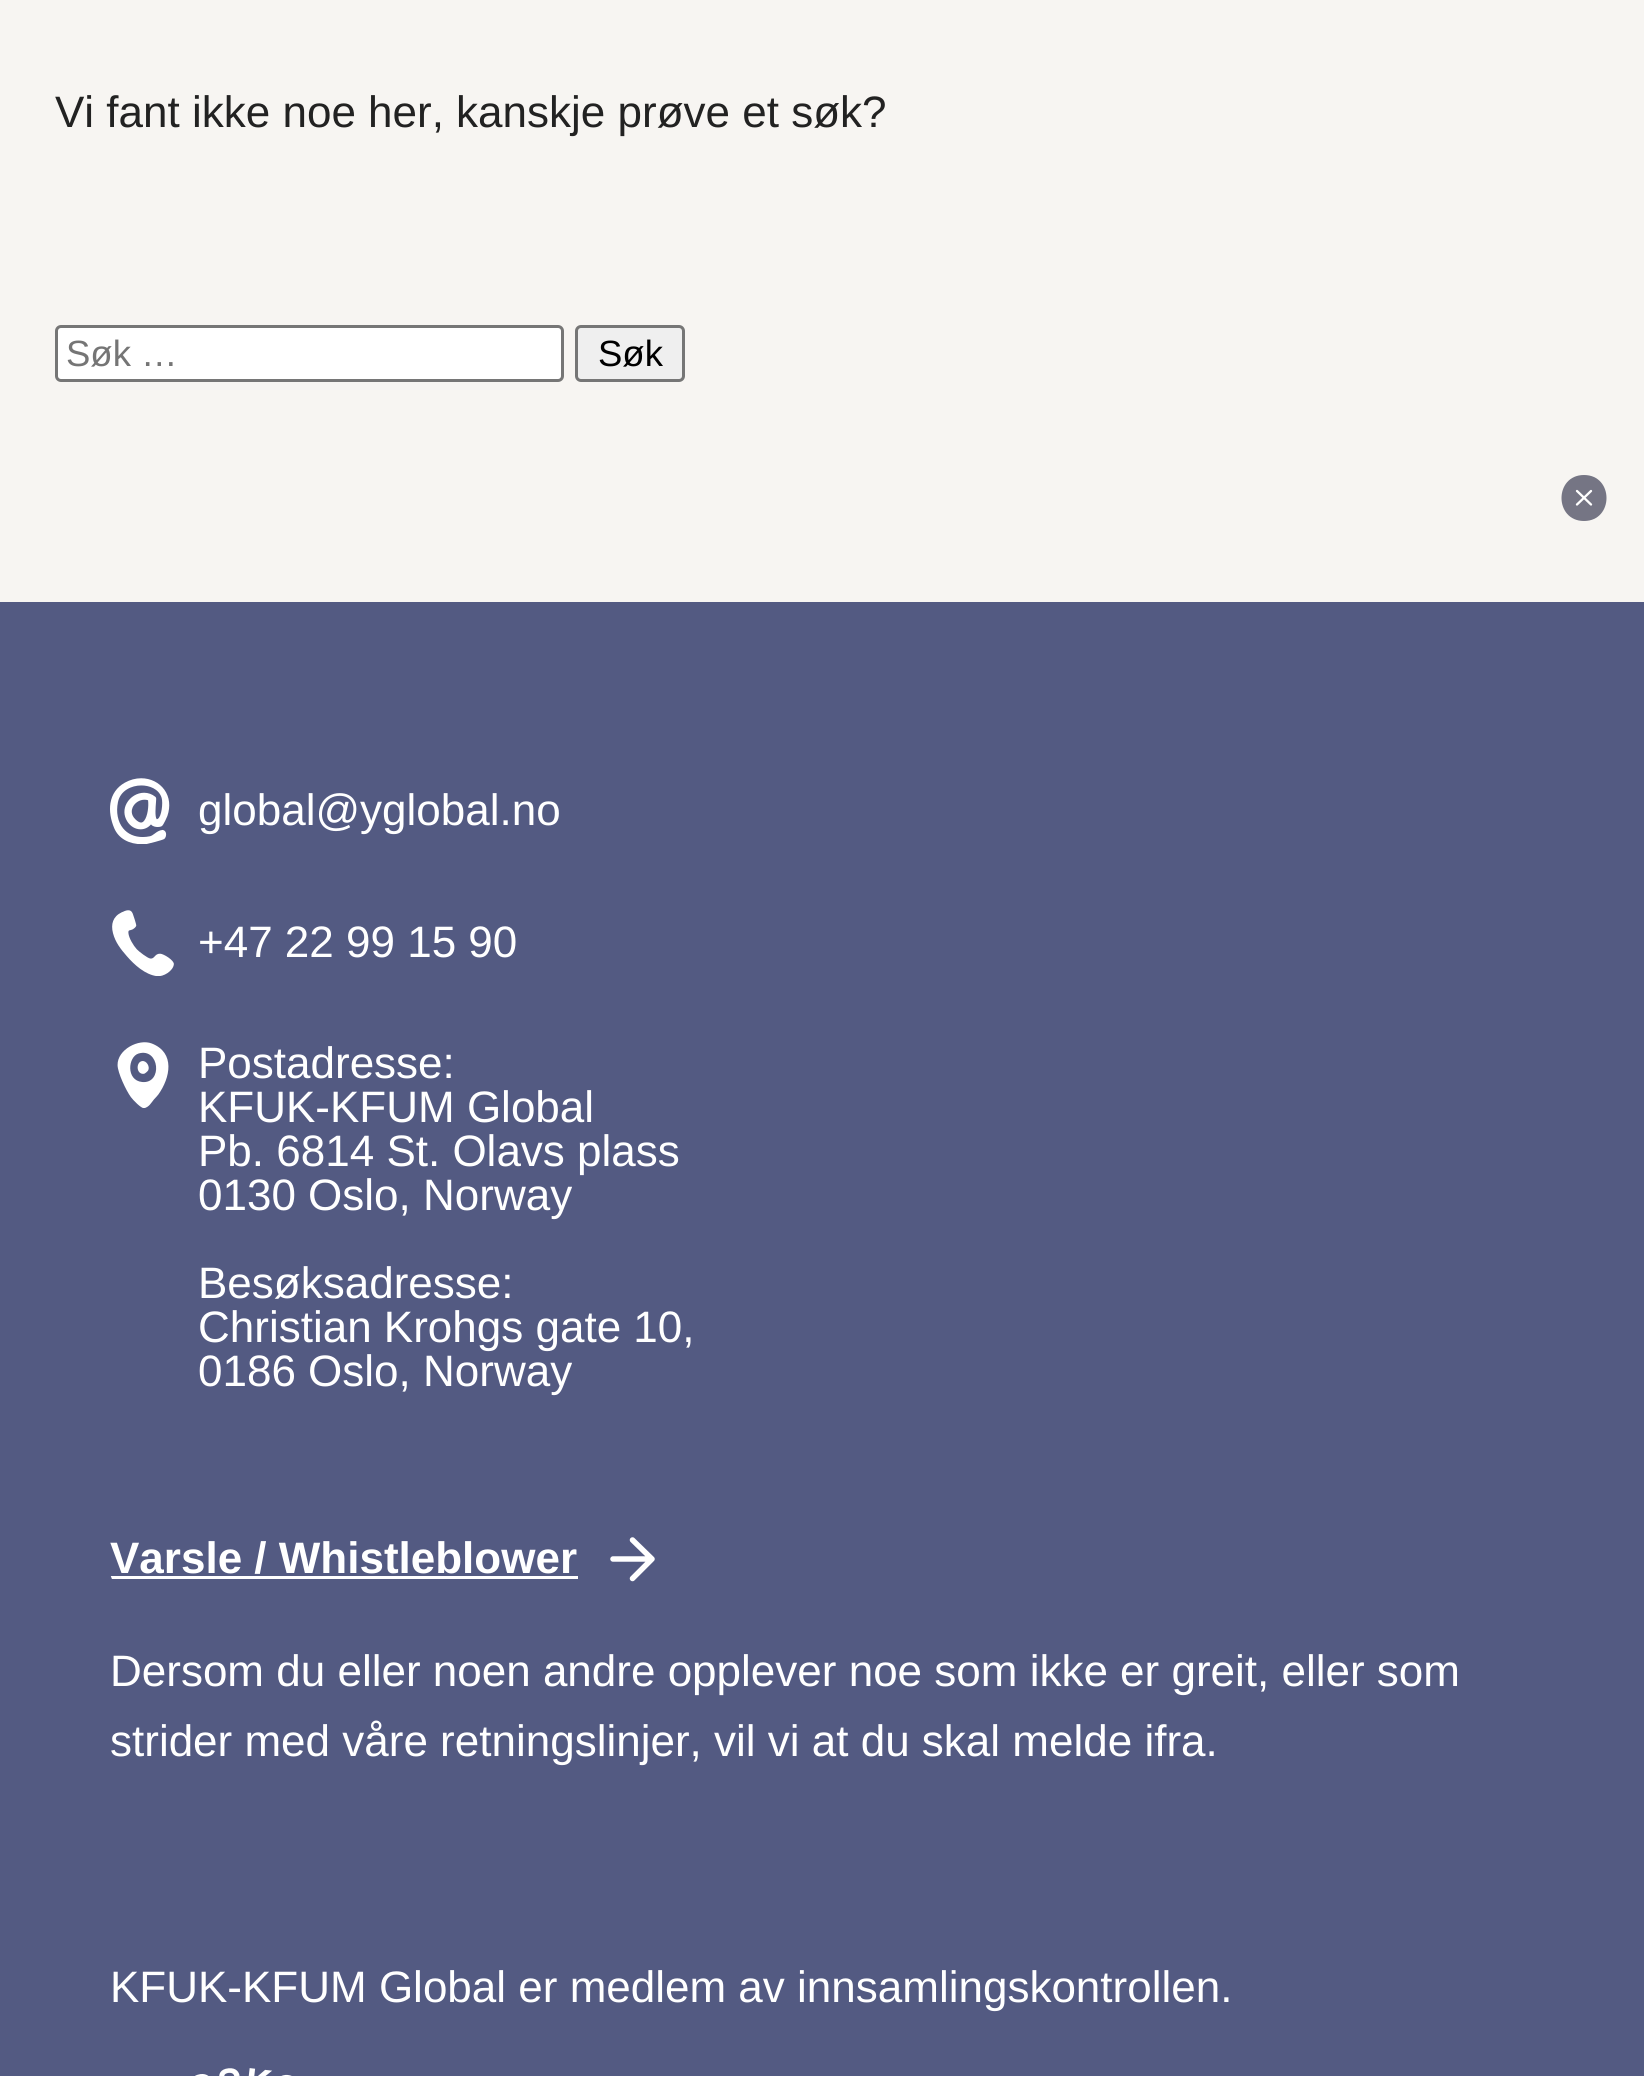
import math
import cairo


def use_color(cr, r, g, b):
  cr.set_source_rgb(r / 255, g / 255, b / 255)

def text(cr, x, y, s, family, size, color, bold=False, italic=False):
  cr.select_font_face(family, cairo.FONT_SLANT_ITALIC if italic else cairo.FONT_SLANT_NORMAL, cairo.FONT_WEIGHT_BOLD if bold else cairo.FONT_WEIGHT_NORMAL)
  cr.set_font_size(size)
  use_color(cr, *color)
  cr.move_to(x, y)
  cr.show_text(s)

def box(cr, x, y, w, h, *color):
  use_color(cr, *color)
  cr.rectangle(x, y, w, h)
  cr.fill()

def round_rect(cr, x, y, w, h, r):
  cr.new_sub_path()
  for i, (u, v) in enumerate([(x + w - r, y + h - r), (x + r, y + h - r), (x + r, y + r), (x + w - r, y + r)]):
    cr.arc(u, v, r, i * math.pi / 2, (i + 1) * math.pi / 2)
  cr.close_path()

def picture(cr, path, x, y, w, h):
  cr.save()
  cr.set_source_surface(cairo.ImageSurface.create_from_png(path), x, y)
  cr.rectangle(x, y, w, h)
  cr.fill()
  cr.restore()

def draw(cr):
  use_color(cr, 247, 245, 242)
  cr.paint()
  use_color(cr, 255, 255, 255)
  round_rect(cr, 56.5, 326.5, 506, 54, 4.5)
  cr.fill_preserve()
  use_color(cr, 118, 118, 118)
  cr.set_line_width(3)
  cr.stroke()
  use_color(cr, 239, 239, 239)
  round_rect(cr, 576.5, 326.5, 107, 54, 4.5)
  cr.fill_preserve()
  use_color(cr, 118, 118, 118)
  cr.stroke()
  use_color(cr, 117, 117, 132)
  cr.new_path()
  cr.move_to(1584, 521)
  cr.curve_to(1614, 521, 1614, 475, 1584, 475)
  cr.curve_to(1554, 475, 1554, 521, 1584, 521)
  cr.close_path()
  cr.fill()
  cr.new_path()
  cr.move_to(1591, 491)
  cr.line_to(1577, 504.5)
  cr.move_to(1577, 491)
  cr.line_to(1591, 504.5)
  use_color(cr, 255, 255, 255)
  cr.set_line_width(2.3)
  cr.set_line_cap(cairo.LINE_CAP_ROUND)
  cr.set_line_join(cairo.LINE_JOIN_ROUND)
  cr.stroke()
  box(cr, 0, 602, 1644, 1474, 83, 90, 130)
  picture(cr, "img_01.png", 110, 778, 60, 66)
  picture(cr, "img_02.png", 112, 910, 62, 66)
  picture(cr, "img_03.png", 117, 1042, 52, 66)
  cr.save()
  round_rect(cr, 110, 1526, 556, 66, 22)
  cr.clip()
  box(cr, 110, 1576, 468, 3, 255, 255, 255)
  cr.restore()
  cr.new_path()
  cr.move_to(613, 1559)
  cr.line_to(652, 1559)
  cr.move_to(632.5, 1540)
  cr.line_to(652, 1559)
  cr.line_to(632.5, 1578.5)
  use_color(cr, 255, 255, 255)
  cr.set_line_width(5.5)
  cr.stroke()
  picture(cr, "img_04.png", 195, 2068, 97, 8)
  text(cr, 55, 127, "Vi fant ikke noe her, kanskje prøve et søk?", "Liberation Sans", 44, (34, 34, 34))
  text(cr, 66, 366, "Søk …", "Liberation Sans", 36.5, (117, 117, 117))
  text(cr, 598, 366, "Søk", "Liberation Sans", 36.5, (0, 0, 0))
  text(cr, 198, 825, "global@yglobal.no", "Liberation Sans", 44, (255, 255, 255))
  text(cr, 198, 957, "+47 22 99 15 90", "Liberation Sans", 44, (255, 255, 255))
  text(cr, 198, 1078, "Postadresse:", "Liberation Sans", 44, (255, 255, 255))
  text(cr, 198, 1122, "KFUK-KFUM Global", "Liberation Sans", 44, (255, 255, 255))
  text(cr, 198, 1166, "Pb. 6814 St. Olavs plass", "Liberation Sans", 44, (255, 255, 255))
  text(cr, 198, 1210, "0130 Oslo, Norway", "Liberation Sans", 44, (255, 255, 255))
  text(cr, 198, 1298, "Besøksadresse:", "Liberation Sans", 44, (255, 255, 255))
  text(cr, 198, 1342, "Christian Krohgs gate 10,", "Liberation Sans", 44, (255, 255, 255))
  text(cr, 198, 1386, "0186 Oslo, Norway", "Liberation Sans", 44, (255, 255, 255))
  text(cr, 110, 1573, "Varsle / Whistleblower", "Liberation Sans", 44, (255, 255, 255), bold=True)
  text(cr, 110, 1686, "Dersom du eller noen andre opplever noe som ikke er greit, eller som", "Liberation Sans", 44, (255, 255, 255))
  text(cr, 110, 1756, "strider med våre retningslinjer, vil vi at du skal melde ifra.", "Liberation Sans", 44, (255, 255, 255))
  text(cr, 110, 2002, "KFUK-KFUM Global er medlem av innsamlingskontrollen.", "Liberation Sans", 44, (255, 255, 255))


surface = cairo.ImageSurface(cairo.FORMAT_RGB24, 1644, 2076)
cr = cairo.Context(surface)
options = cairo.FontOptions()
options.set_hint_metrics(cairo.HINT_METRICS_OFF)
options.set_hint_style(cairo.HINT_STYLE_NONE)
cr.set_font_options(options)
cr.set_miter_limit(4)
draw(cr)
surface.write_to_png("out.png")
